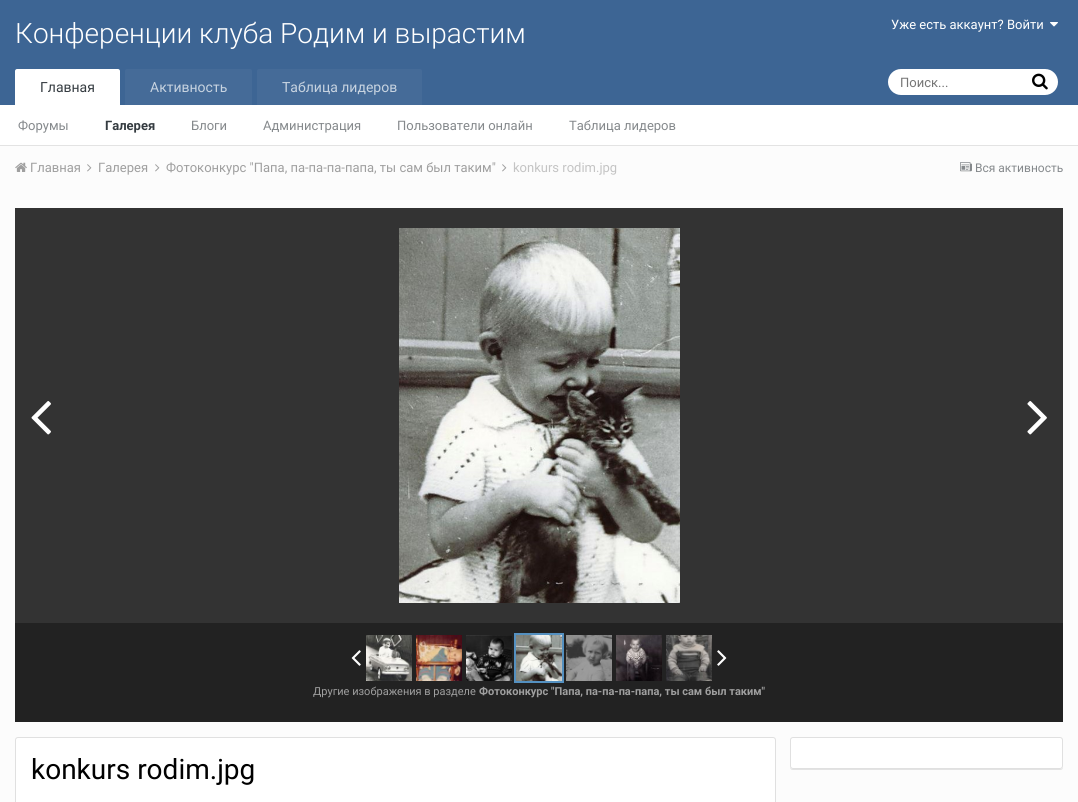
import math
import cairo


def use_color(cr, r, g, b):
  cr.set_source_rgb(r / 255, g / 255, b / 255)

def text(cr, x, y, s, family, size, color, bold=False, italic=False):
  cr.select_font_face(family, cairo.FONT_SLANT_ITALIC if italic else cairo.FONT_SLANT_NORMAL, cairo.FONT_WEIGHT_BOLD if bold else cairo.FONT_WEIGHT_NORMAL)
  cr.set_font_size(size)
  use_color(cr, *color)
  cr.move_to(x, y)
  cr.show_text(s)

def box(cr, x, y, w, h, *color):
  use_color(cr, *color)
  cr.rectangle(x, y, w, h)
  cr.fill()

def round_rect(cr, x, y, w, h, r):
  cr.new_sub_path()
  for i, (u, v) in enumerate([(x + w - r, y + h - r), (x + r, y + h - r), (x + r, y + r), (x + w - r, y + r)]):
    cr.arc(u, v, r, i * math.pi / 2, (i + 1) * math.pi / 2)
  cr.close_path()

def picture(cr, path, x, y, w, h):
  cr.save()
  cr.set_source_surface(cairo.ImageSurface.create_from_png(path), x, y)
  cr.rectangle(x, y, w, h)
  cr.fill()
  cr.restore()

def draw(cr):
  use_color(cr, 252, 252, 252)
  cr.paint()
  box(cr, 0, 145, 1078, 1, 227, 227, 227)
  box(cr, 0, 0, 1078, 105, 61, 101, 148)
  picture(cr, "img_01.png", 1050, 22, 8, 5)
  box(cr, 0, 105, 1078, 40, 255, 255, 255)
  use_color(cr, 69, 107, 152)
  cr.new_path()
  cr.move_to(259, 69)
  cr.line_to(420, 69)
  cr.curve_to(421, 69, 422, 70, 422, 71)
  cr.line_to(422, 105)
  cr.line_to(257, 105)
  cr.line_to(257, 71)
  cr.curve_to(257, 70, 258, 69, 259, 69)
  cr.close_path()
  cr.fill()
  use_color(cr, 255, 255, 255)
  cr.new_path()
  cr.move_to(17, 69)
  cr.line_to(118, 69)
  cr.curve_to(119, 69, 120, 70, 120, 71)
  cr.line_to(120, 105)
  cr.line_to(15, 105)
  cr.line_to(15, 71)
  cr.curve_to(15, 70, 16, 69, 17, 69)
  cr.close_path()
  cr.fill()
  use_color(cr, 69, 107, 152)
  cr.new_path()
  cr.move_to(127, 69)
  cr.line_to(250, 69)
  cr.curve_to(251, 69, 252, 70, 252, 71)
  cr.line_to(252, 105)
  cr.line_to(125, 105)
  cr.line_to(125, 71)
  cr.curve_to(125, 70, 126, 69, 127, 69)
  cr.close_path()
  cr.fill()
  use_color(cr, 255, 255, 255)
  round_rect(cr, 888, 69, 170, 26, 13)
  cr.fill()
  picture(cr, "img_02.png", 1032, 73, 16, 17)
  picture(cr, "img_03.png", 15, 162, 12, 10)
  picture(cr, "img_04.png", 87, 164, 5, 8)
  picture(cr, "img_04.png", 155, 164, 5, 8)
  picture(cr, "img_04.png", 502, 164, 5, 8)
  picture(cr, "img_05.png", 960, 162, 12, 10)
  box(cr, 15, 208, 1048, 415, 51, 51, 51)
  picture(cr, "img_06.png", 399, 228, 281, 375)
  picture(cr, "img_07.png", 31, 401, 20, 34)
  picture(cr, "img_08.png", 1027, 401, 20, 34)
  box(cr, 15, 623, 1048, 99, 34, 34, 34)
  picture(cr, "img_09.png", 351, 650, 10, 16)
  picture(cr, "img_10.png", 366, 635, 46, 46)
  picture(cr, "img_11.png", 416, 635, 46, 46)
  picture(cr, "img_12.png", 466, 635, 46, 46)
  picture(cr, "img_13.png", 516, 635, 46, 46)
  cr.rectangle(515, 634, 48, 48)
  use_color(cr, 84, 144, 192)
  cr.stroke()
  picture(cr, "img_14.png", 566, 635, 46, 46)
  picture(cr, "img_15.png", 616, 635, 46, 46)
  picture(cr, "img_16.png", 666, 635, 46, 46)
  picture(cr, "img_17.png", 717, 650, 10, 16)
  use_color(cr, 255, 255, 255)
  round_rect(cr, 15.5, 737.5, 760, 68, 2.5)
  cr.fill_preserve()
  use_color(cr, 224, 224, 224)
  cr.set_line_width(1)
  cr.stroke()
  use_color(cr, 227, 227, 227)
  cr.new_path()
  cr.move_to(790, 766)
  cr.line_to(790, 767)
  cr.curve_to(790, 769, 791, 770, 793, 770)
  cr.line_to(1060, 770)
  cr.curve_to(1062, 770, 1063, 769, 1063, 767)
  cr.line_to(1063, 766)
  cr.curve_to(1063, 768, 1062, 769, 1060, 769)
  cr.line_to(793, 769)
  cr.curve_to(791, 769, 790, 768, 790, 766)
  cr.close_path()
  cr.fill()
  use_color(cr, 255, 255, 255)
  round_rect(cr, 790.5, 737.5, 272, 31, 2.5)
  cr.fill_preserve()
  use_color(cr, 224, 224, 224)
  cr.stroke()
  text(cr, 15, 43, "Конференции клуба Родим и вырастим", "Roboto Light", 28, (255, 255, 255))
  text(cr, 891, 29, "Уже есть аккаунт? Войти", "Roboto", 13, (255, 255, 255))
  text(cr, 282, 92, "Таблица лидеров", "Roboto", 14, (199, 211, 224))
  text(cr, 40, 92, "Главная", "Roboto", 14, (53, 60, 65))
  text(cr, 18, 130, "Форумы", "Roboto", 13, (133, 137, 140))
  text(cr, 105, 130, "Галерея", "Roboto", 13, (53, 60, 65), bold=True)
  text(cr, 191, 130, "Блоги", "Roboto", 13, (133, 137, 140))
  text(cr, 263, 130, "Администрация", "Roboto", 13, (133, 137, 140))
  text(cr, 397, 130, "Пользователи онлайн", "Roboto", 13, (133, 137, 140))
  text(cr, 569, 130, "Таблица лидеров", "Roboto", 13, (133, 137, 140))
  text(cr, 150, 92, "Активность", "Roboto", 14, (199, 211, 224))
  text(cr, 900, 87, "Поиск...", "Roboto", 13, (117, 117, 117))
  text(cr, 30, 172, "Главная", "Roboto", 13, (159, 159, 159))
  text(cr, 98, 172, "Галерея", "Roboto", 13, (159, 159, 159))
  text(cr, 166, 172, "Фотоконкурс \"Папа, па-па-па-папа, ты сам был таким\"", "Roboto", 13, (159, 159, 159))
  text(cr, 513, 172, "konkurs rodim.jpg", "Roboto", 13, (196, 196, 196))
  text(cr, 975, 172, "Вся активность", "Roboto", 12, (133, 137, 140))
  text(cr, 313, 695, "Другие изображения в разделе", "Roboto", 11, (159, 159, 159))
  text(cr, 479, 695, "Фотоконкурс \"Папа, па-па-па-папа, ты сам был таким\"", "Roboto", 11, (159, 159, 159), bold=True)
  text(cr, 31, 779, "konkurs rodim.jpg", "Roboto", 28, (0, 0, 0))


surface = cairo.ImageSurface(cairo.FORMAT_RGB24, 1078, 802)
cr = cairo.Context(surface)
options = cairo.FontOptions()
options.set_hint_metrics(cairo.HINT_METRICS_OFF)
options.set_hint_style(cairo.HINT_STYLE_NONE)
cr.set_font_options(options)
cr.set_miter_limit(4)
draw(cr)
surface.write_to_png("out.png")
